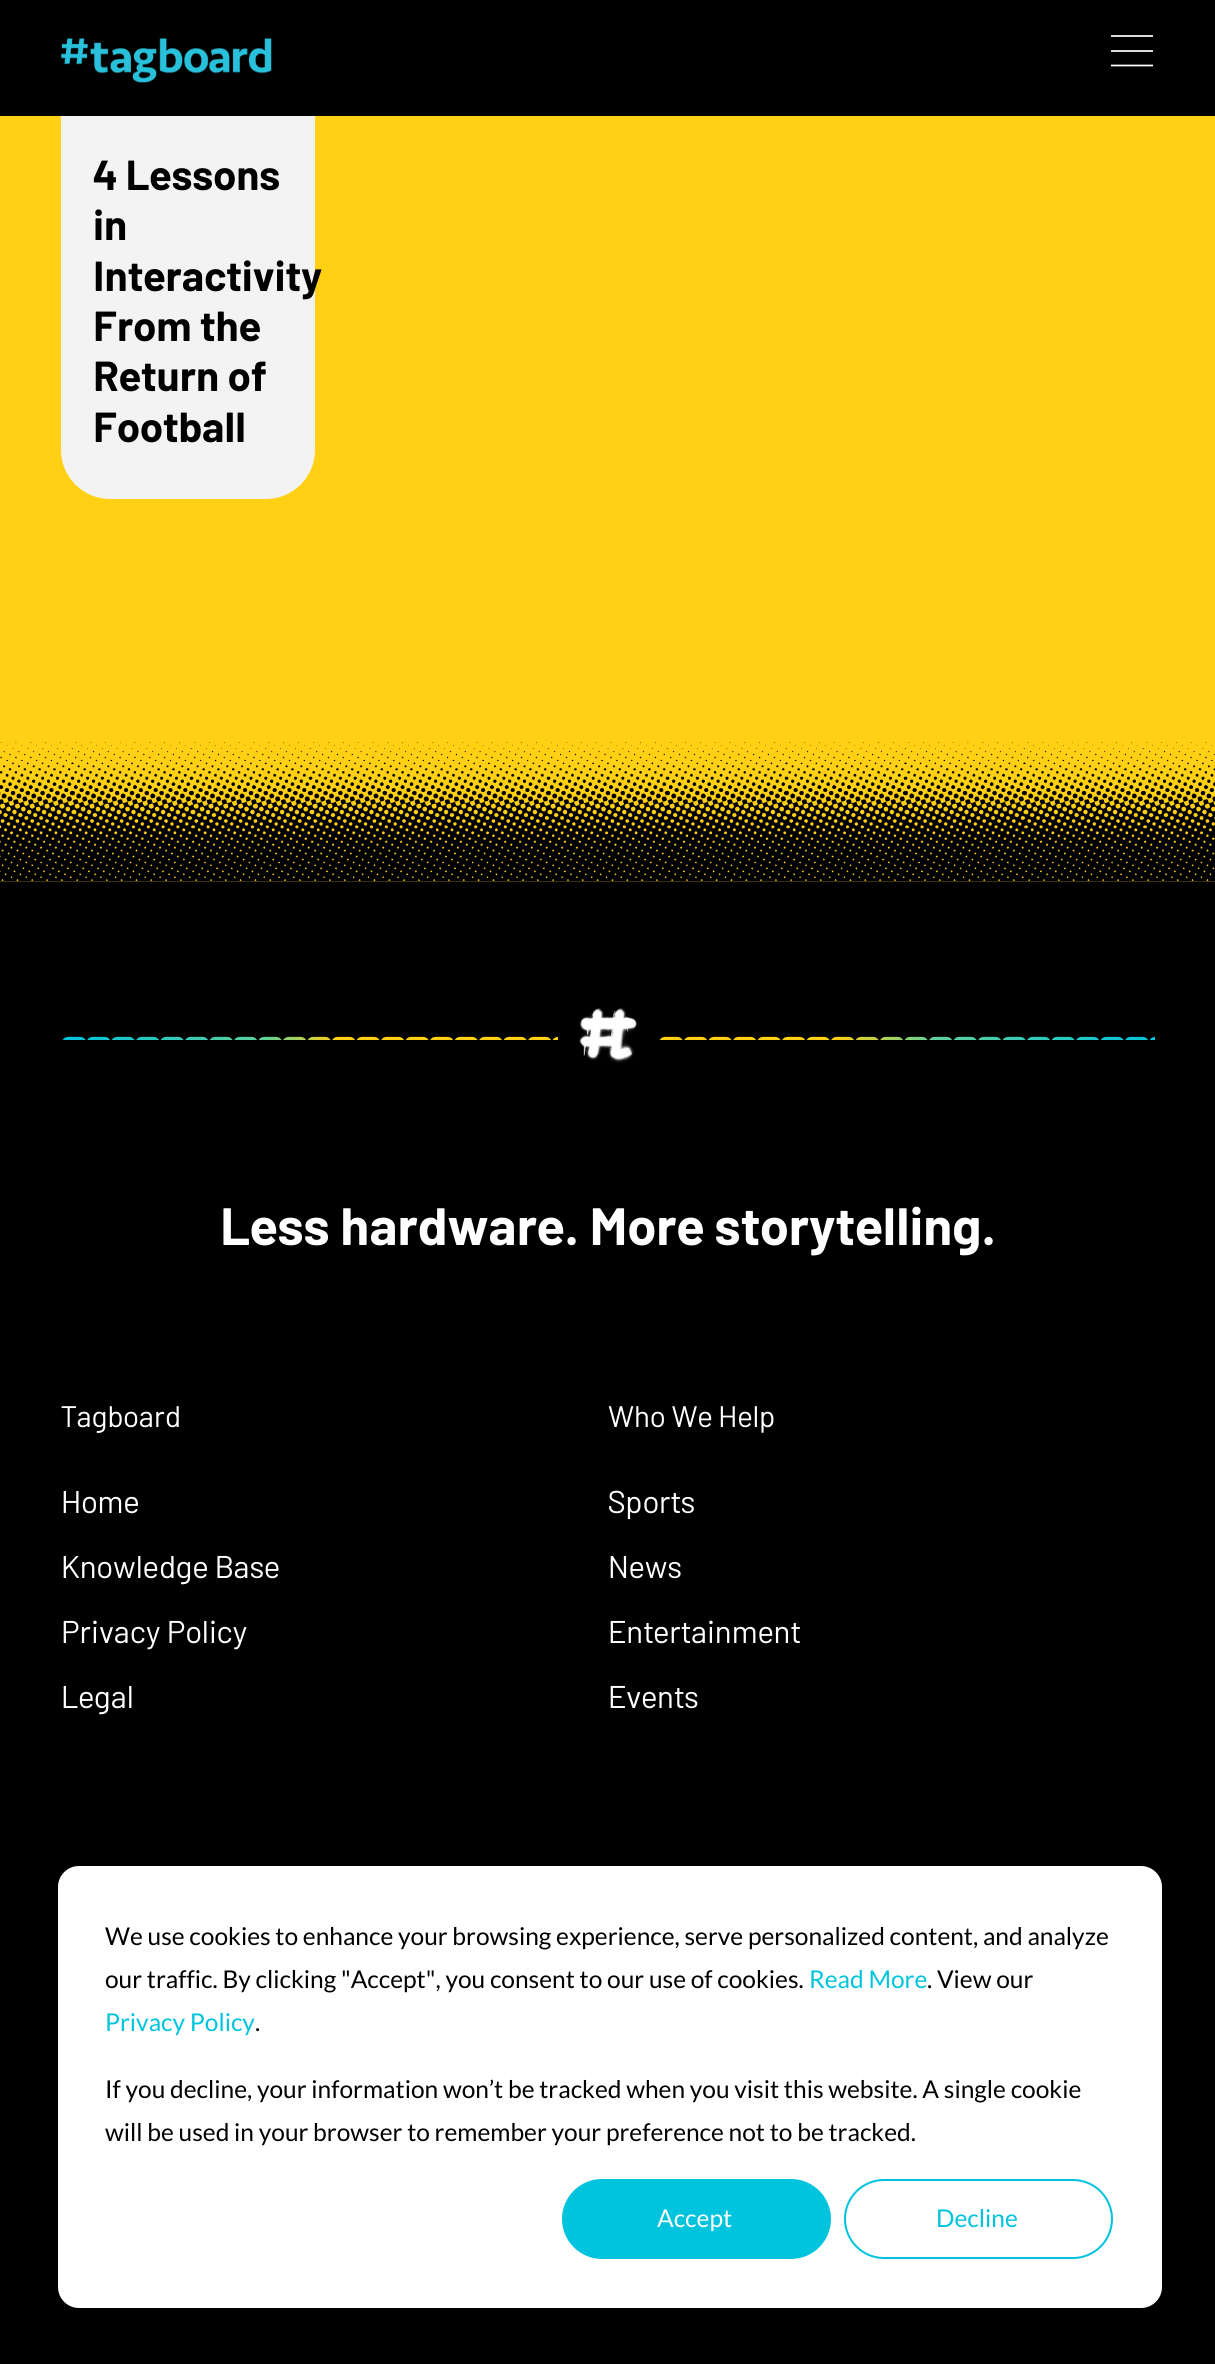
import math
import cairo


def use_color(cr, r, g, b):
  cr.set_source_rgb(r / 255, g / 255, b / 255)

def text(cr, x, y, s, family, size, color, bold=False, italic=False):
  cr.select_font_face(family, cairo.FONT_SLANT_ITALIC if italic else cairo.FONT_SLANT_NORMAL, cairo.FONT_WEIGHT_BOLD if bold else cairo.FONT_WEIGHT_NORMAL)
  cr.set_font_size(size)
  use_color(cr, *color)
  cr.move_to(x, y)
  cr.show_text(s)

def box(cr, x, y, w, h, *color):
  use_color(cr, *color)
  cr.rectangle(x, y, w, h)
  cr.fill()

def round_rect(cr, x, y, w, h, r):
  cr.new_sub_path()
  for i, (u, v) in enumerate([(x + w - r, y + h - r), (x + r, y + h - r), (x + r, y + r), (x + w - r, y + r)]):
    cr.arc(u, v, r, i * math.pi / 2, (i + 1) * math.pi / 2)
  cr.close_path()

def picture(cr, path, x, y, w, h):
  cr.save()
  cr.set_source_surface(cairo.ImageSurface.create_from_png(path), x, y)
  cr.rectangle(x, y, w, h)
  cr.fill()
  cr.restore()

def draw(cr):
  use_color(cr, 0, 0, 0)
  cr.paint()
  box(cr, 0, 116, 1215, 766, 255, 208, 19)
  use_color(cr, 243, 243, 244)
  cr.new_path()
  cr.move_to(61, 4)
  cr.line_to(266, 4)
  cr.curve_to(293, 4, 315, 26, 315, 53)
  cr.line_to(315, 450)
  cr.curve_to(315, 477, 293, 499, 266, 499)
  cr.line_to(110, 499)
  cr.curve_to(83, 499, 61, 477, 61, 450)
  cr.close_path()
  cr.fill()
  box(cr, 61, 4, 254, 112, 0, 0, 0)
  picture(cr, "img_01.png", 61, 38, 211, 45)
  cr.save()
  cr.rectangle(1111, 35, 42, 32)
  cr.clip()
  cr.new_path()
  cr.move_to(1111, 36)
  cr.line_to(1154.5, 36)
  cr.move_to(1111, 51)
  cr.line_to(1154.5, 51)
  cr.move_to(1111, 65.5)
  cr.line_to(1154.5, 65.5)
  use_color(cr, 255, 255, 255)
  cr.set_line_width(1.7)
  cr.stroke()
  cr.restore()
  picture(cr, "img_02.png", 0, 742, 1215, 140)
  cr.save()
  cr.rectangle(61, 1036, 497, 4)
  cr.clip()
  cr.new_path()
  cr.move_to(68, 1043)
  cr.line_to(558, 1043)
  gradient = cairo.LinearGradient(68, 1043, 558, 1043)
  gradient.add_color_stop_rgba(0, 0, 0.769, 0.867, 1)
  gradient.add_color_stop_rgba(0.4, 0.376, 0.816, 0.608, 1)
  gradient.add_color_stop_rgba(0.55, 1, 0.816, 0.075, 1)
  gradient.add_color_stop_rgba(1, 1, 0.816, 0.075, 1)
  cr.set_source(gradient)
  cr.set_line_width(12.2)
  cr.set_line_cap(cairo.LINE_CAP_ROUND)
  cr.set_dash([12.25, 12.25])
  cr.stroke()
  cr.restore()
  picture(cr, "img_03.png", 579, 1007, 60, 56)
  cr.save()
  cr.rectangle(658, 1036, 497, 4)
  cr.clip()
  cr.new_path()
  cr.move_to(665, 1043)
  cr.line_to(1155, 1043)
  gradient = cairo.LinearGradient(665, 1043, 1155, 1043)
  gradient.add_color_stop_rgba(0, 1, 0.816, 0.075, 1)
  gradient.add_color_stop_rgba(0.35, 1, 0.816, 0.075, 1)
  gradient.add_color_stop_rgba(0.55, 0.376, 0.816, 0.608, 1)
  gradient.add_color_stop_rgba(1, 0, 0.769, 0.867, 1)
  cr.set_source(gradient)
  cr.set_line_width(12.2)
  cr.set_line_cap(cairo.LINE_CAP_ROUND)
  cr.set_dash([12.25, 12.25])
  cr.stroke()
  cr.restore()
  use_color(cr, 255, 255, 255)
  round_rect(cr, 58, 1866, 1104, 442, 21)
  cr.fill()
  use_color(cr, 0, 196, 221)
  round_rect(cr, 563, 2180, 267, 78, 39)
  cr.fill_preserve()
  cr.stroke()
  round_rect(cr, 845, 2180, 267, 78, 39)
  cr.stroke()
  text(cr, 93, 190, "4 Lessons", "Barlow", 42, (0, 0, 0), bold=True)
  text(cr, 93, 240, "in", "Barlow", 42, (0, 0, 0), bold=True)
  text(cr, 93, 291, "Interactivity", "Barlow", 42, (0, 0, 0), bold=True)
  text(cr, 93, 341, "From the", "Barlow", 42, (0, 0, 0), bold=True)
  text(cr, 93, 391, "Return of", "Barlow", 42, (0, 0, 0), bold=True)
  text(cr, 93, 442, "Football", "Barlow", 42, (0, 0, 0), bold=True)
  text(cr, 220, 1245, "Less hardware. More storytelling.", "Barlow", 52.5, (255, 255, 255), bold=True)
  text(cr, 61, 1427, "Tagboard", "Barlow", 29.75, (255, 255, 255))
  text(cr, 61, 1513, "Home", "Barlow", 31.5, (255, 255, 255))
  text(cr, 61, 1578, "Knowledge Base", "Barlow", 31.5, (255, 255, 255))
  text(cr, 61, 1643, "Privacy Policy", "Barlow", 31.5, (255, 255, 255))
  text(cr, 61, 1708, "Legal", "Barlow", 31.5, (255, 255, 255))
  text(cr, 608, 1427, "Who We Help", "Barlow", 29.75, (255, 255, 255))
  text(cr, 608, 1513, "Sports", "Barlow", 31.5, (255, 255, 255))
  text(cr, 608, 1578, "News", "Barlow", 31.5, (255, 255, 255))
  text(cr, 608, 1643, "Entertainment", "Barlow", 31.5, (255, 255, 255))
  text(cr, 608, 1708, "Events", "Barlow", 31.5, (255, 255, 255))
  text(cr, 105, 1945, "We use cookies to enhance your browsing experience, serve personalized content, and analyze", "Lato", 24.5, (0, 0, 0))
  text(cr, 105, 1988, "our traffic. By clicking \"Accept\", you consent to our use of cookies.", "Lato", 24.5, (0, 0, 0))
  text(cr, 809, 1988, "Read More", "Lato", 24.5, (0, 196, 221))
  text(cr, 927, 1988, ". View our", "Lato", 24.5, (0, 0, 0))
  text(cr, 105, 2031, "Privacy Policy", "Lato", 24.5, (0, 196, 221))
  text(cr, 255, 2031, ".", "Lato", 24.5, (0, 0, 0))
  text(cr, 105, 2098, "If you decline, your information won’t be tracked when you visit this website. A single cookie", "Lato", 24.5, (0, 0, 0))
  text(cr, 105, 2141, "will be used in your browser to remember your preference not to be tracked.", "Lato", 24.5, (0, 0, 0))
  text(cr, 657, 2227, "Accept", "Lato", 24.5, (255, 255, 255))
  text(cr, 936, 2227, "Decline", "Lato", 24.5, (0, 196, 221))


surface = cairo.ImageSurface(cairo.FORMAT_RGB24, 1215, 2364)
cr = cairo.Context(surface)
options = cairo.FontOptions()
options.set_hint_metrics(cairo.HINT_METRICS_OFF)
options.set_hint_style(cairo.HINT_STYLE_NONE)
cr.set_font_options(options)
cr.set_miter_limit(4)
draw(cr)
surface.write_to_png("out.png")
